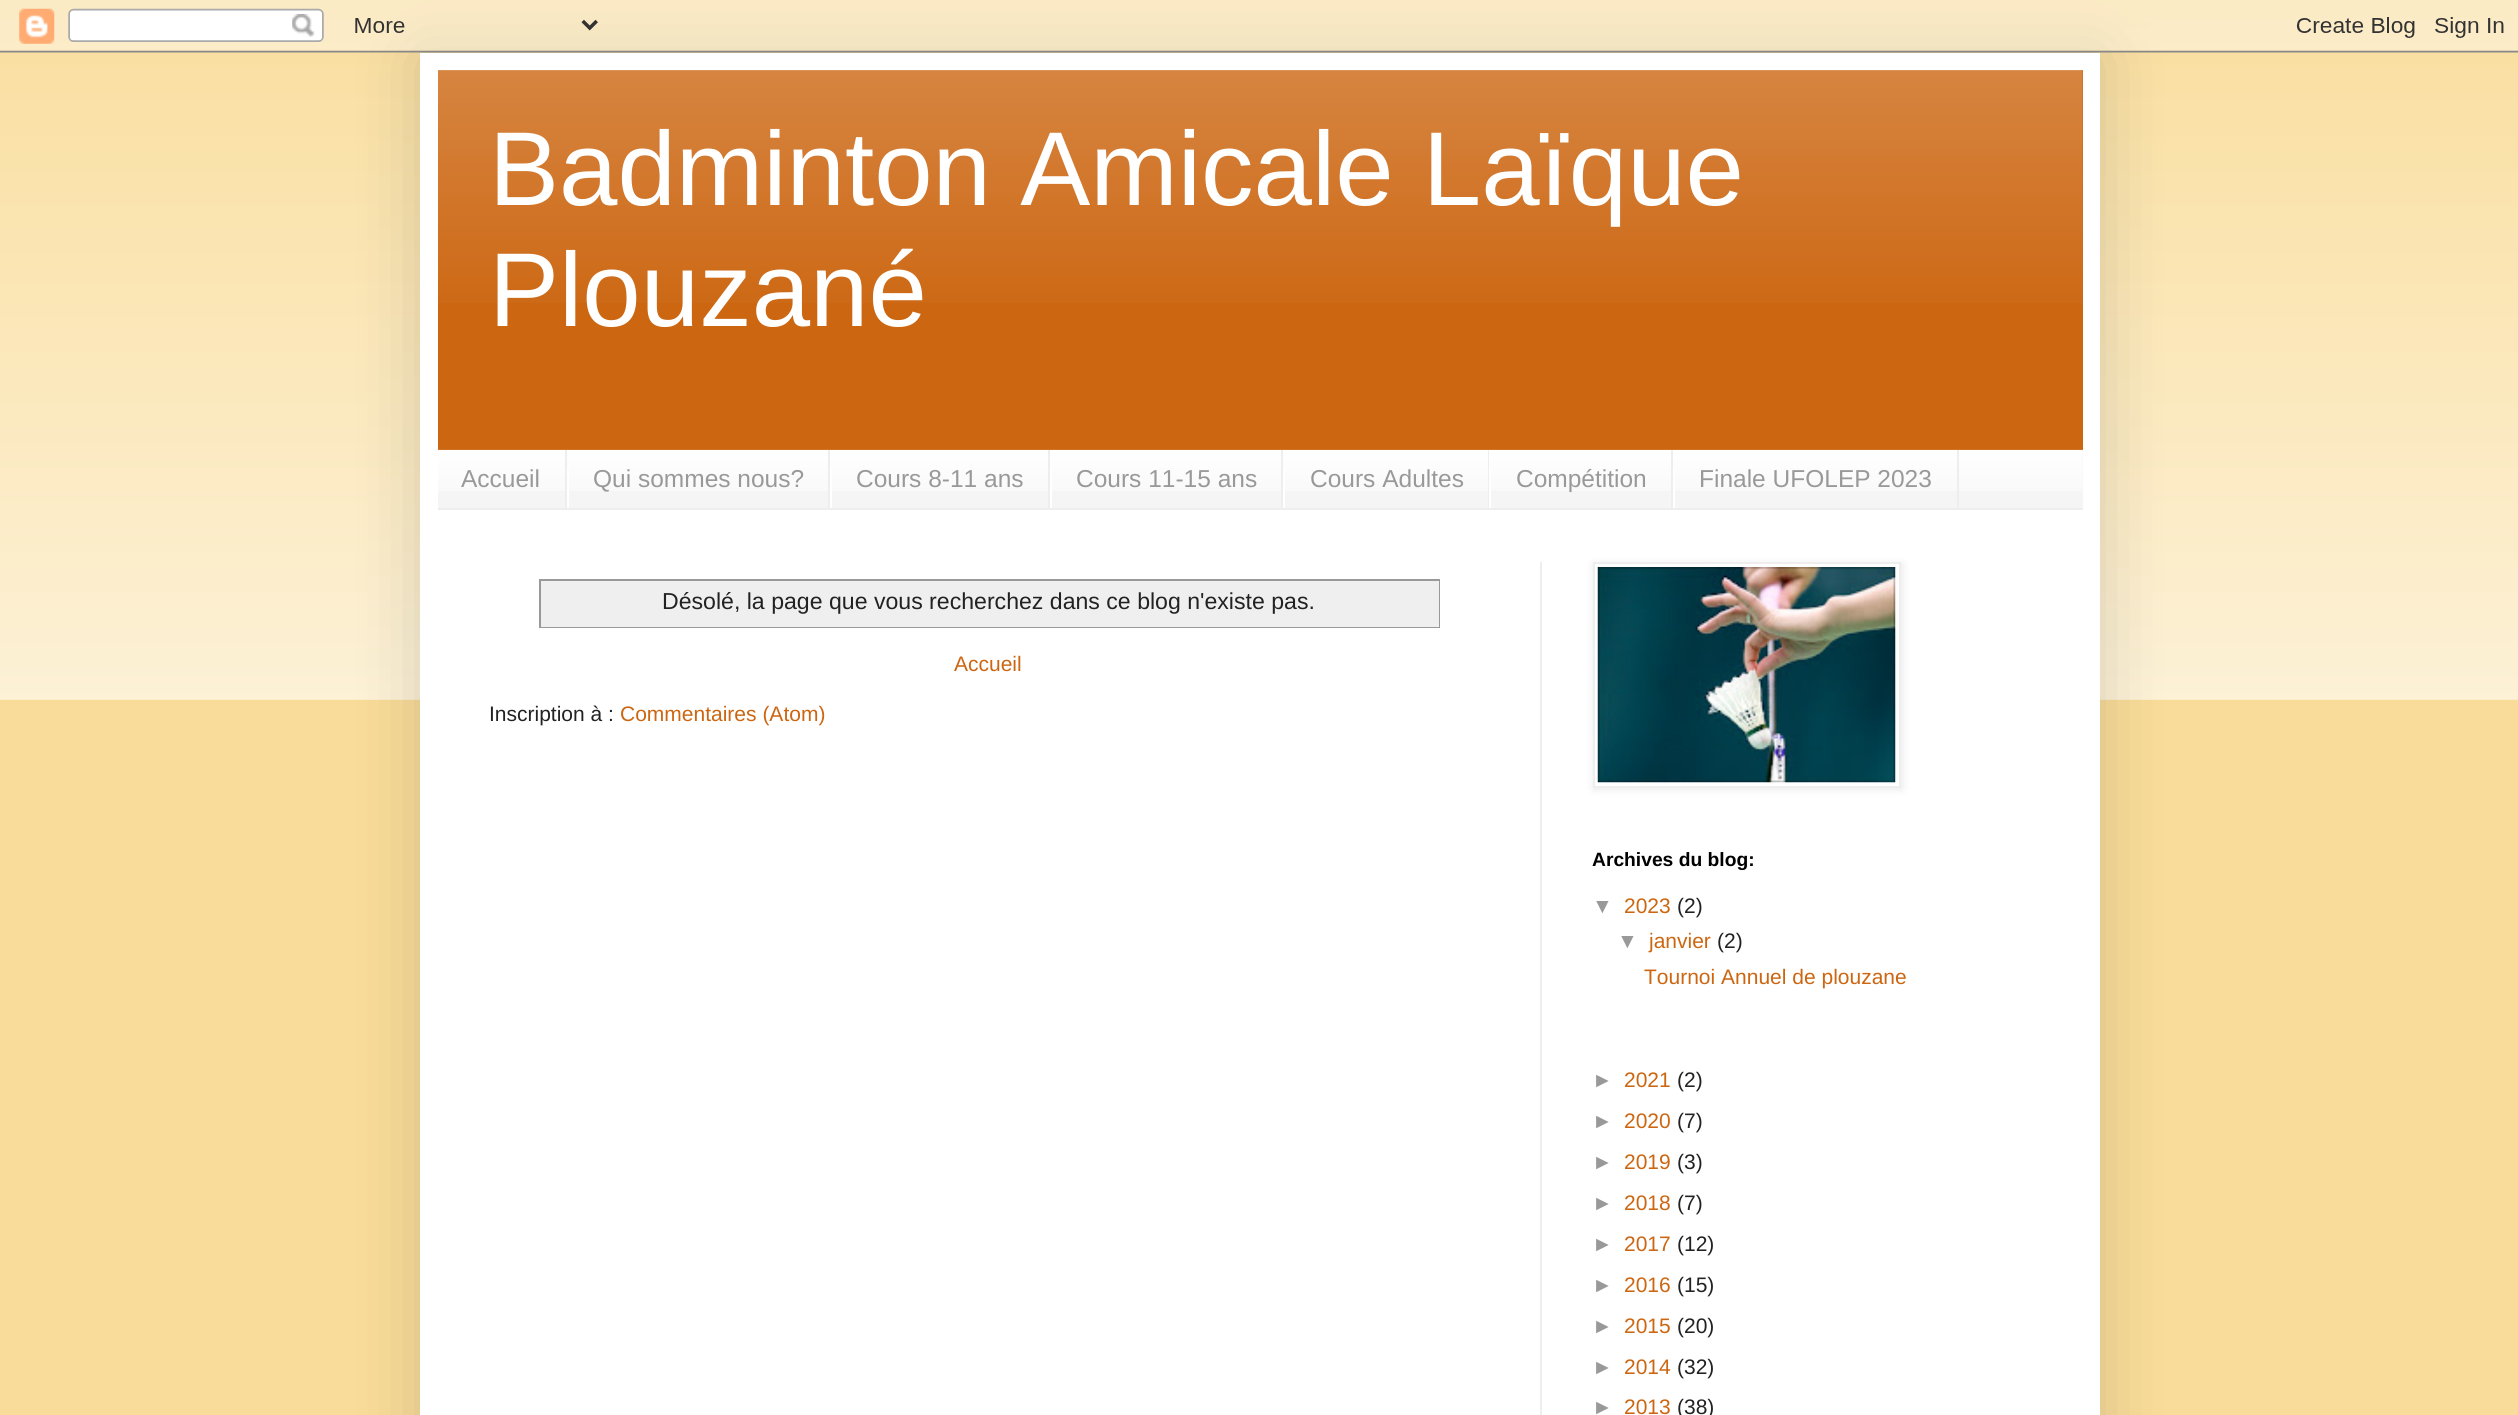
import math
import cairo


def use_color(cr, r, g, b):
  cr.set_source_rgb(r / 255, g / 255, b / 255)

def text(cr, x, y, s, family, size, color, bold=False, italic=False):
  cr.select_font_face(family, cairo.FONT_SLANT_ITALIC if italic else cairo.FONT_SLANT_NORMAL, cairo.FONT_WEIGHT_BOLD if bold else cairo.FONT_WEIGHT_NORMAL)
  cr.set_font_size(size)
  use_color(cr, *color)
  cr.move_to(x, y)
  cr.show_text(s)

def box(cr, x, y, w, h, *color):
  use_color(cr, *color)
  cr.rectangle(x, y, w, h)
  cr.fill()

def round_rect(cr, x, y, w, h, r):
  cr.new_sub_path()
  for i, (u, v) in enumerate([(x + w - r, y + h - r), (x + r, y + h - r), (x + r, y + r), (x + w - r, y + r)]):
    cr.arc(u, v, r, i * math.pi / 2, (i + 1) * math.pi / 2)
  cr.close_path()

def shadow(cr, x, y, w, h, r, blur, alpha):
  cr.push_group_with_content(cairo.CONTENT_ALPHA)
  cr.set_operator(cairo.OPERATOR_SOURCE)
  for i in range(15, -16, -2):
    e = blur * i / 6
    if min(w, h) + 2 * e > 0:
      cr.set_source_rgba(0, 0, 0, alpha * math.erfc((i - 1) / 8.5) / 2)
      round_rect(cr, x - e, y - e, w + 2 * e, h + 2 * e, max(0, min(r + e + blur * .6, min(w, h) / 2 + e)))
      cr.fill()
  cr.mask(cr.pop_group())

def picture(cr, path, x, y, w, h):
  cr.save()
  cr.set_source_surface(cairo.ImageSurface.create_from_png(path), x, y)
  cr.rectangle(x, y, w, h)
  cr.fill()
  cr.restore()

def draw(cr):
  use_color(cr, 249, 220, 153)
  cr.paint()
  picture(cr, "img_01.png", 0, 0, 2518, 700)
  use_color(cr, 0, 0, 0)
  shadow(cr, 420, 53, 1680, 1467, 0, 35, 0.15)
  picture(cr, "img_02.png", 0, 0, 2518, 53)
  box(cr, 420, 53, 1680, 1362, 255, 255, 255)
  box(cr, 438, 70, 1645, 380, 204, 102, 17)
  picture(cr, "img_03.png", 438, 70, 1645, 233)
  box(cr, 438, 450, 1645, 58, 245, 245, 245)
  picture(cr, "img_04.png", 438, 449, 1645, 42)
  box(cr, 438, 508, 1645, 2, 238, 238, 238)
  box(cr, 565, 450, 2, 58, 238, 238, 238)
  box(cr, 828, 450, 2, 58, 238, 238, 238)
  box(cr, 567, 469, 2, 39, 255, 255, 255)
  box(cr, 1048, 450, 2, 58, 238, 238, 238)
  box(cr, 830, 469, 2, 39, 255, 255, 255)
  box(cr, 1281, 450, 2, 58, 238, 238, 238)
  box(cr, 1050, 469, 2, 39, 255, 255, 255)
  box(cr, 1488, 450, 1, 58, 238, 238, 238)
  box(cr, 1283, 469, 2, 39, 255, 255, 255)
  box(cr, 1671, 450, 2, 58, 238, 238, 238)
  box(cr, 1489, 469, 2, 39, 255, 255, 255)
  box(cr, 1957, 450, 2, 58, 238, 238, 238)
  box(cr, 1673, 469, 2, 39, 255, 255, 255)
  box(cr, 1540, 562, 2, 853, 238, 238, 238)
  cr.rectangle(540, 580, 899, 47)
  use_color(cr, 153, 153, 153)
  cr.stroke()
  box(cr, 541, 581, 898, 46, 239, 239, 239)
  use_color(cr, 0, 0, 0)
  shadow(cr, 1594, 564, 308, 225, 0, 4.5, 0.1)
  use_color(cr, 255, 255, 255)
  cr.rectangle(1594, 563, 306, 224)
  cr.fill_preserve()
  use_color(cr, 238, 238, 238)
  cr.stroke()
  picture(cr, "img_05.png", 1597, 567, 299, 216)
  text(cr, 489, 205, "Badminton Amicale Laïque", "Liberation Sans", 105, (255, 255, 255))
  text(cr, 489, 326, "Plouzané", "Liberation Sans", 105, (255, 255, 255))
  text(cr, 461, 487, "Accueil", "Liberation Sans", 24.5, (153, 153, 153))
  text(cr, 593, 487, "Qui sommes nous?", "Liberation Sans", 24.5, (153, 153, 153))
  text(cr, 856, 487, "Cours 8-11 ans", "Liberation Sans", 24.5, (153, 153, 153))
  text(cr, 1076, 487, "Cours 11-15 ans", "Liberation Sans", 24.5, (153, 153, 153))
  text(cr, 1310, 487, "Cours Adultes", "Liberation Sans", 24.5, (153, 153, 153))
  text(cr, 1516, 487, "Compétition", "Liberation Sans", 24.5, (153, 153, 153))
  text(cr, 1699, 487, "Finale UFOLEP 2023", "Liberation Sans", 24.5, (153, 153, 153))
  text(cr, 662, 609, "Désolé, la page que vous recherchez dans ce blog n'existe pas.", "Liberation Sans", 23.1, (34, 34, 34))
  text(cr, 954, 671, "Accueil", "Liberation Sans", 21, (204, 102, 17))
  text(cr, 489, 721, "Inscription à :", "Liberation Sans", 21, (34, 34, 34))
  text(cr, 620, 721, "Commentaires (Atom)", "Liberation Sans", 21, (204, 102, 17))
  text(cr, 1592, 866, "Archives du blog:", "Liberation Sans", 19.25, (0, 0, 0), bold=True)
  text(cr, 1592, 913, "▼", "Liberation Sans", 21, (153, 153, 153))
  text(cr, 1624, 913, "2023", "Liberation Sans", 21, (204, 102, 17))
  text(cr, 1677, 913, "(2)", "Liberation Sans", 21, (34, 34, 34))
  text(cr, 1617, 948, "▼", "Liberation Sans", 21, (153, 153, 153))
  text(cr, 1649, 948, "janvier", "Liberation Sans", 21, (204, 102, 17))
  text(cr, 1717, 948, "(2)", "Liberation Sans", 21, (34, 34, 34))
  text(cr, 1644, 984, "Tournoi Annuel de plouzane", "Liberation Sans", 21, (204, 102, 17))
  text(cr, 1592, 1087, "►", "Liberation Sans", 21, (153, 153, 153))
  text(cr, 1624, 1087, "2021", "Liberation Sans", 21, (204, 102, 17))
  text(cr, 1677, 1087, "(2)", "Liberation Sans", 21, (34, 34, 34))
  text(cr, 1592, 1128, "►", "Liberation Sans", 21, (153, 153, 153))
  text(cr, 1624, 1128, "2020", "Liberation Sans", 21, (204, 102, 17))
  text(cr, 1677, 1128, "(7)", "Liberation Sans", 21, (34, 34, 34))
  text(cr, 1592, 1169, "►", "Liberation Sans", 21, (153, 153, 153))
  text(cr, 1624, 1169, "2019", "Liberation Sans", 21, (204, 102, 17))
  text(cr, 1677, 1169, "(3)", "Liberation Sans", 21, (34, 34, 34))
  text(cr, 1592, 1210, "►", "Liberation Sans", 21, (153, 153, 153))
  text(cr, 1624, 1210, "2018", "Liberation Sans", 21, (204, 102, 17))
  text(cr, 1677, 1210, "(7)", "Liberation Sans", 21, (34, 34, 34))
  text(cr, 1592, 1251, "►", "Liberation Sans", 21, (153, 153, 153))
  text(cr, 1624, 1251, "2017", "Liberation Sans", 21, (204, 102, 17))
  text(cr, 1677, 1251, "(12)", "Liberation Sans", 21, (34, 34, 34))
  text(cr, 1592, 1292, "►", "Liberation Sans", 21, (153, 153, 153))
  text(cr, 1624, 1292, "2016", "Liberation Sans", 21, (204, 102, 17))
  text(cr, 1677, 1292, "(15)", "Liberation Sans", 21, (34, 34, 34))
  text(cr, 1592, 1333, "►", "Liberation Sans", 21, (153, 153, 153))
  text(cr, 1624, 1333, "2015", "Liberation Sans", 21, (204, 102, 17))
  text(cr, 1677, 1333, "(20)", "Liberation Sans", 21, (34, 34, 34))
  text(cr, 1592, 1374, "►", "Liberation Sans", 21, (153, 153, 153))
  text(cr, 1624, 1374, "2014", "Liberation Sans", 21, (204, 102, 17))
  text(cr, 1677, 1374, "(32)", "Liberation Sans", 21, (34, 34, 34))
  text(cr, 1592, 1414, "►", "Liberation Sans", 21, (153, 153, 153))
  text(cr, 1624, 1414, "2013", "Liberation Sans", 21, (204, 102, 17))
  text(cr, 1677, 1414, "(38)", "Liberation Sans", 21, (34, 34, 34))


surface = cairo.ImageSurface(cairo.FORMAT_RGB24, 2518, 1415)
cr = cairo.Context(surface)
options = cairo.FontOptions()
options.set_hint_metrics(cairo.HINT_METRICS_OFF)
options.set_hint_style(cairo.HINT_STYLE_NONE)
cr.set_font_options(options)
cr.set_miter_limit(4)
draw(cr)
surface.write_to_png("out.png")
